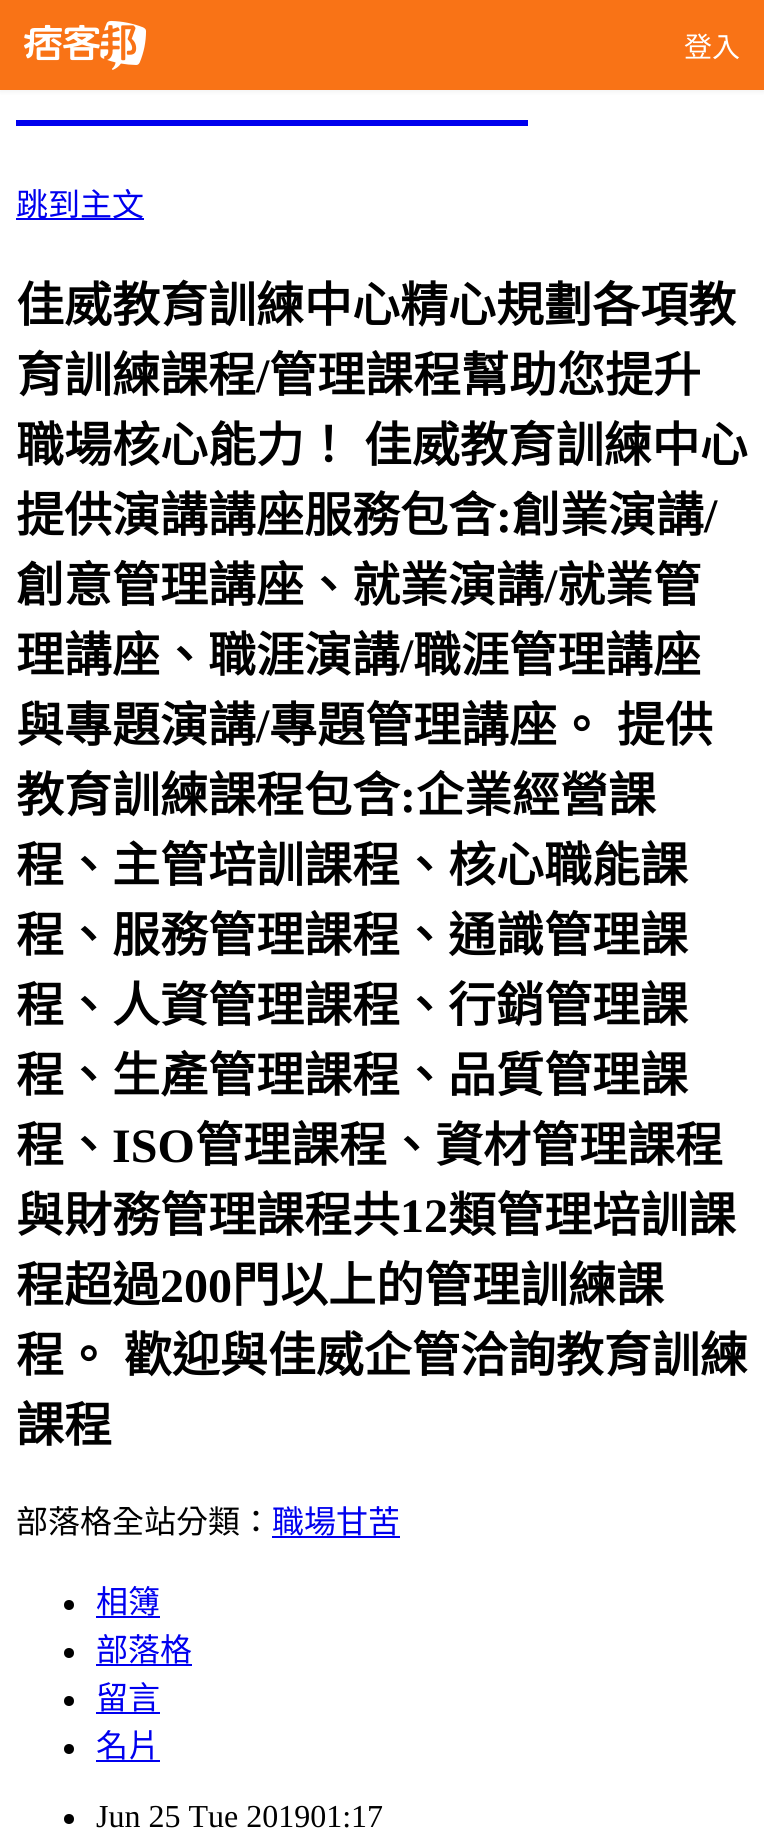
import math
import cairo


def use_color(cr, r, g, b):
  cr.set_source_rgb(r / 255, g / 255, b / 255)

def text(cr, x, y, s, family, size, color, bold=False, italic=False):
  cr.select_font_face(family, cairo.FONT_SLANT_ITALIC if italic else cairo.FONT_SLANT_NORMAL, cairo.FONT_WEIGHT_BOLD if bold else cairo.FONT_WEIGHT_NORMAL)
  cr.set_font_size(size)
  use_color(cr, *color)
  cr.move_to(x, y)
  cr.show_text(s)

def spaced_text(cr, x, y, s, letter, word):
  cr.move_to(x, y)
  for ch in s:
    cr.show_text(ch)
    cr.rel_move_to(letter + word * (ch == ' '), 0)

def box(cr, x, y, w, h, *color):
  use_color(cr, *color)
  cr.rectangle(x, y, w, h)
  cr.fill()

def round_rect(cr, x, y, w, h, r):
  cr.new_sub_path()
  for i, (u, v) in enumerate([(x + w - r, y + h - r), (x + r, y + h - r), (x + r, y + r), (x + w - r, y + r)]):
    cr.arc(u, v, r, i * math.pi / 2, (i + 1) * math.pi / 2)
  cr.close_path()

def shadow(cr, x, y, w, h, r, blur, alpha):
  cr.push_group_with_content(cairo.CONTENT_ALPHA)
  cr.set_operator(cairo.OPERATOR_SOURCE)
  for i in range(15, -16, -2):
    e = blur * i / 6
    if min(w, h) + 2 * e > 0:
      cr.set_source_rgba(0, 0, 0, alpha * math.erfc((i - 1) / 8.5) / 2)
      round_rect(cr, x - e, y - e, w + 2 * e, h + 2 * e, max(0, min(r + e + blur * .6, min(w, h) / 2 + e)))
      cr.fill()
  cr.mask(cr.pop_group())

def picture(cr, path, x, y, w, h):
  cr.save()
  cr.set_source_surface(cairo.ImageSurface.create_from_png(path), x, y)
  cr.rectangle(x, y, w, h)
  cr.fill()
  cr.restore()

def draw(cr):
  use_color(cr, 255, 255, 255)
  cr.paint()
  use_color(cr, 0, 0, 0)
  shadow(cr, 0, 2, 764, 90, 0, 2, 0.05)
  box(cr, 0, 0, 764, 90, 249, 115, 22)
  picture(cr, "img_01.png", 24, 20, 123, 50)
  box(cr, 16, 120, 512, 6, 0, 0, 238)
  box(cr, 16, 218, 128, 2, 0, 0, 238)
  box(cr, 272, 1536, 128, 2, 0, 0, 238)
  use_color(cr, 0, 0, 0)
  cr.arc(69, 1605, 5, 0, 2 * math.pi)
  cr.fill()
  box(cr, 96, 1616, 64, 2, 0, 0, 238)
  use_color(cr, 0, 0, 0)
  cr.arc(69, 1653, 5, 0, 2 * math.pi)
  cr.fill()
  box(cr, 96, 1664, 96, 2, 0, 0, 238)
  use_color(cr, 0, 0, 0)
  cr.arc(69, 1701, 5, 0, 2 * math.pi)
  cr.fill()
  box(cr, 96, 1712, 64, 2, 0, 0, 238)
  use_color(cr, 0, 0, 0)
  cr.arc(69, 1749, 5, 0, 2 * math.pi)
  cr.fill()
  box(cr, 96, 1760, 64, 2, 0, 0, 238)
  use_color(cr, 0, 0, 0)
  cr.arc(69, 1819, 5, 0, 2 * math.pi)
  cr.fill()
  text(cr, 684, 57, "登入", "Noto Sans CJK TC", 28, (255, 255, 255))
  text(cr, 16, 216, "跳到主文", "Noto Sans CJK TC", 32, (0, 0, 238))
  text(cr, 16, 322, "佳威教育訓練中心精心規劃各項教", "Noto Sans CJK TC", 48, (0, 0, 0), bold=True)
  text(cr, 16, 392, "育訓練課程", "Noto Sans CJK TC", 48, (0, 0, 0), bold=True)
  text(cr, 256, 392, "/", "Liberation Serif", 48, (0, 0, 0), bold=True)
  text(cr, 269, 392, "管理課程幫助您提升", "Noto Sans CJK TC", 48, (0, 0, 0), bold=True)
  spaced_text(cr, 16, 462, "職場核心能力！ 佳威教育訓練中心", 0, 1)
  text(cr, 16, 532, "提供演講講座服務包含", "Noto Sans CJK TC", 48, (0, 0, 0), bold=True)
  text(cr, 496, 532, ":", "Liberation Serif", 48, (0, 0, 0), bold=True)
  text(cr, 512, 532, "創業演講", "Noto Sans CJK TC", 48, (0, 0, 0), bold=True)
  text(cr, 704, 532, "/", "Liberation Serif", 48, (0, 0, 0), bold=True)
  text(cr, 16, 602, "創意管理講座、就業演講", "Noto Sans CJK TC", 48, (0, 0, 0), bold=True)
  text(cr, 544, 602, "/", "Liberation Serif", 48, (0, 0, 0), bold=True)
  text(cr, 557, 602, "就業管", "Noto Sans CJK TC", 48, (0, 0, 0), bold=True)
  text(cr, 16, 672, "理講座、職涯演講", "Noto Sans CJK TC", 48, (0, 0, 0), bold=True)
  text(cr, 400, 672, "/", "Liberation Serif", 48, (0, 0, 0), bold=True)
  text(cr, 413, 672, "職涯管理講座", "Noto Sans CJK TC", 48, (0, 0, 0), bold=True)
  text(cr, 16, 742, "與專題演講", "Noto Sans CJK TC", 48, (0, 0, 0), bold=True)
  text(cr, 256, 742, "/", "Liberation Serif", 48, (0, 0, 0), bold=True)
  cr.select_font_face("Noto Sans CJK TC", cairo.FONT_SLANT_NORMAL, cairo.FONT_WEIGHT_BOLD)
  spaced_text(cr, 269, 742, "專題管理講座。 提供", 0, 1)
  text(cr, 16, 812, "教育訓練課程包含", "Noto Sans CJK TC", 48, (0, 0, 0), bold=True)
  text(cr, 400, 812, ":", "Liberation Serif", 48, (0, 0, 0), bold=True)
  text(cr, 416, 812, "企業經營課", "Noto Sans CJK TC", 48, (0, 0, 0), bold=True)
  text(cr, 16, 882, "程、主管培訓課程、核心職能課", "Noto Sans CJK TC", 48, (0, 0, 0), bold=True)
  text(cr, 16, 952, "程、服務管理課程、通識管理課", "Noto Sans CJK TC", 48, (0, 0, 0), bold=True)
  text(cr, 16, 1022, "程、人資管理課程、行銷管理課", "Noto Sans CJK TC", 48, (0, 0, 0), bold=True)
  text(cr, 16, 1092, "程、生產管理課程、品質管理課", "Noto Sans CJK TC", 48, (0, 0, 0), bold=True)
  text(cr, 16, 1162, "程、", "Noto Sans CJK TC", 48, (0, 0, 0), bold=True)
  text(cr, 112, 1162, "ISO", "Liberation Serif", 48, (0, 0, 0), bold=True)
  text(cr, 195, 1162, "管理課程、資材管理課程", "Noto Sans CJK TC", 48, (0, 0, 0), bold=True)
  text(cr, 16, 1232, "與財務管理課程共", "Noto Sans CJK TC", 48, (0, 0, 0), bold=True)
  text(cr, 400, 1232, "12", "Liberation Serif", 48, (0, 0, 0), bold=True)
  text(cr, 448, 1232, "類管理培訓課", "Noto Sans CJK TC", 48, (0, 0, 0), bold=True)
  text(cr, 16, 1302, "程超過", "Noto Sans CJK TC", 48, (0, 0, 0), bold=True)
  text(cr, 160, 1302, "200", "Liberation Serif", 48, (0, 0, 0), bold=True)
  text(cr, 232, 1302, "門以上的管理訓練課", "Noto Sans CJK TC", 48, (0, 0, 0), bold=True)
  spaced_text(cr, 16, 1372, "程。 歡迎與佳威企管洽詢教育訓練", 0, 1)
  text(cr, 16, 1442, "課程", "Noto Sans CJK TC", 48, (0, 0, 0), bold=True)
  text(cr, 16, 1533, "部落格全站分類：", "Noto Sans CJK TC", 32, (0, 0, 0))
  text(cr, 272, 1533, "職場甘苦", "Noto Sans CJK TC", 32, (0, 0, 238))
  text(cr, 96, 1613, "相簿", "Noto Sans CJK TC", 32, (0, 0, 238))
  text(cr, 96, 1661, "部落格", "Noto Sans CJK TC", 32, (0, 0, 238))
  text(cr, 96, 1709, "留言", "Noto Sans CJK TC", 32, (0, 0, 238))
  text(cr, 96, 1757, "名片", "Noto Sans CJK TC", 32, (0, 0, 238))
  text(cr, 96, 1827, "Jun 25 Tue 201901:17", "Liberation Serif", 32, (0, 0, 0))


surface = cairo.ImageSurface(cairo.FORMAT_RGB24, 764, 1833)
cr = cairo.Context(surface)
options = cairo.FontOptions()
options.set_hint_metrics(cairo.HINT_METRICS_OFF)
options.set_hint_style(cairo.HINT_STYLE_NONE)
cr.set_font_options(options)
cr.set_miter_limit(4)
draw(cr)
surface.write_to_png("out.png")
